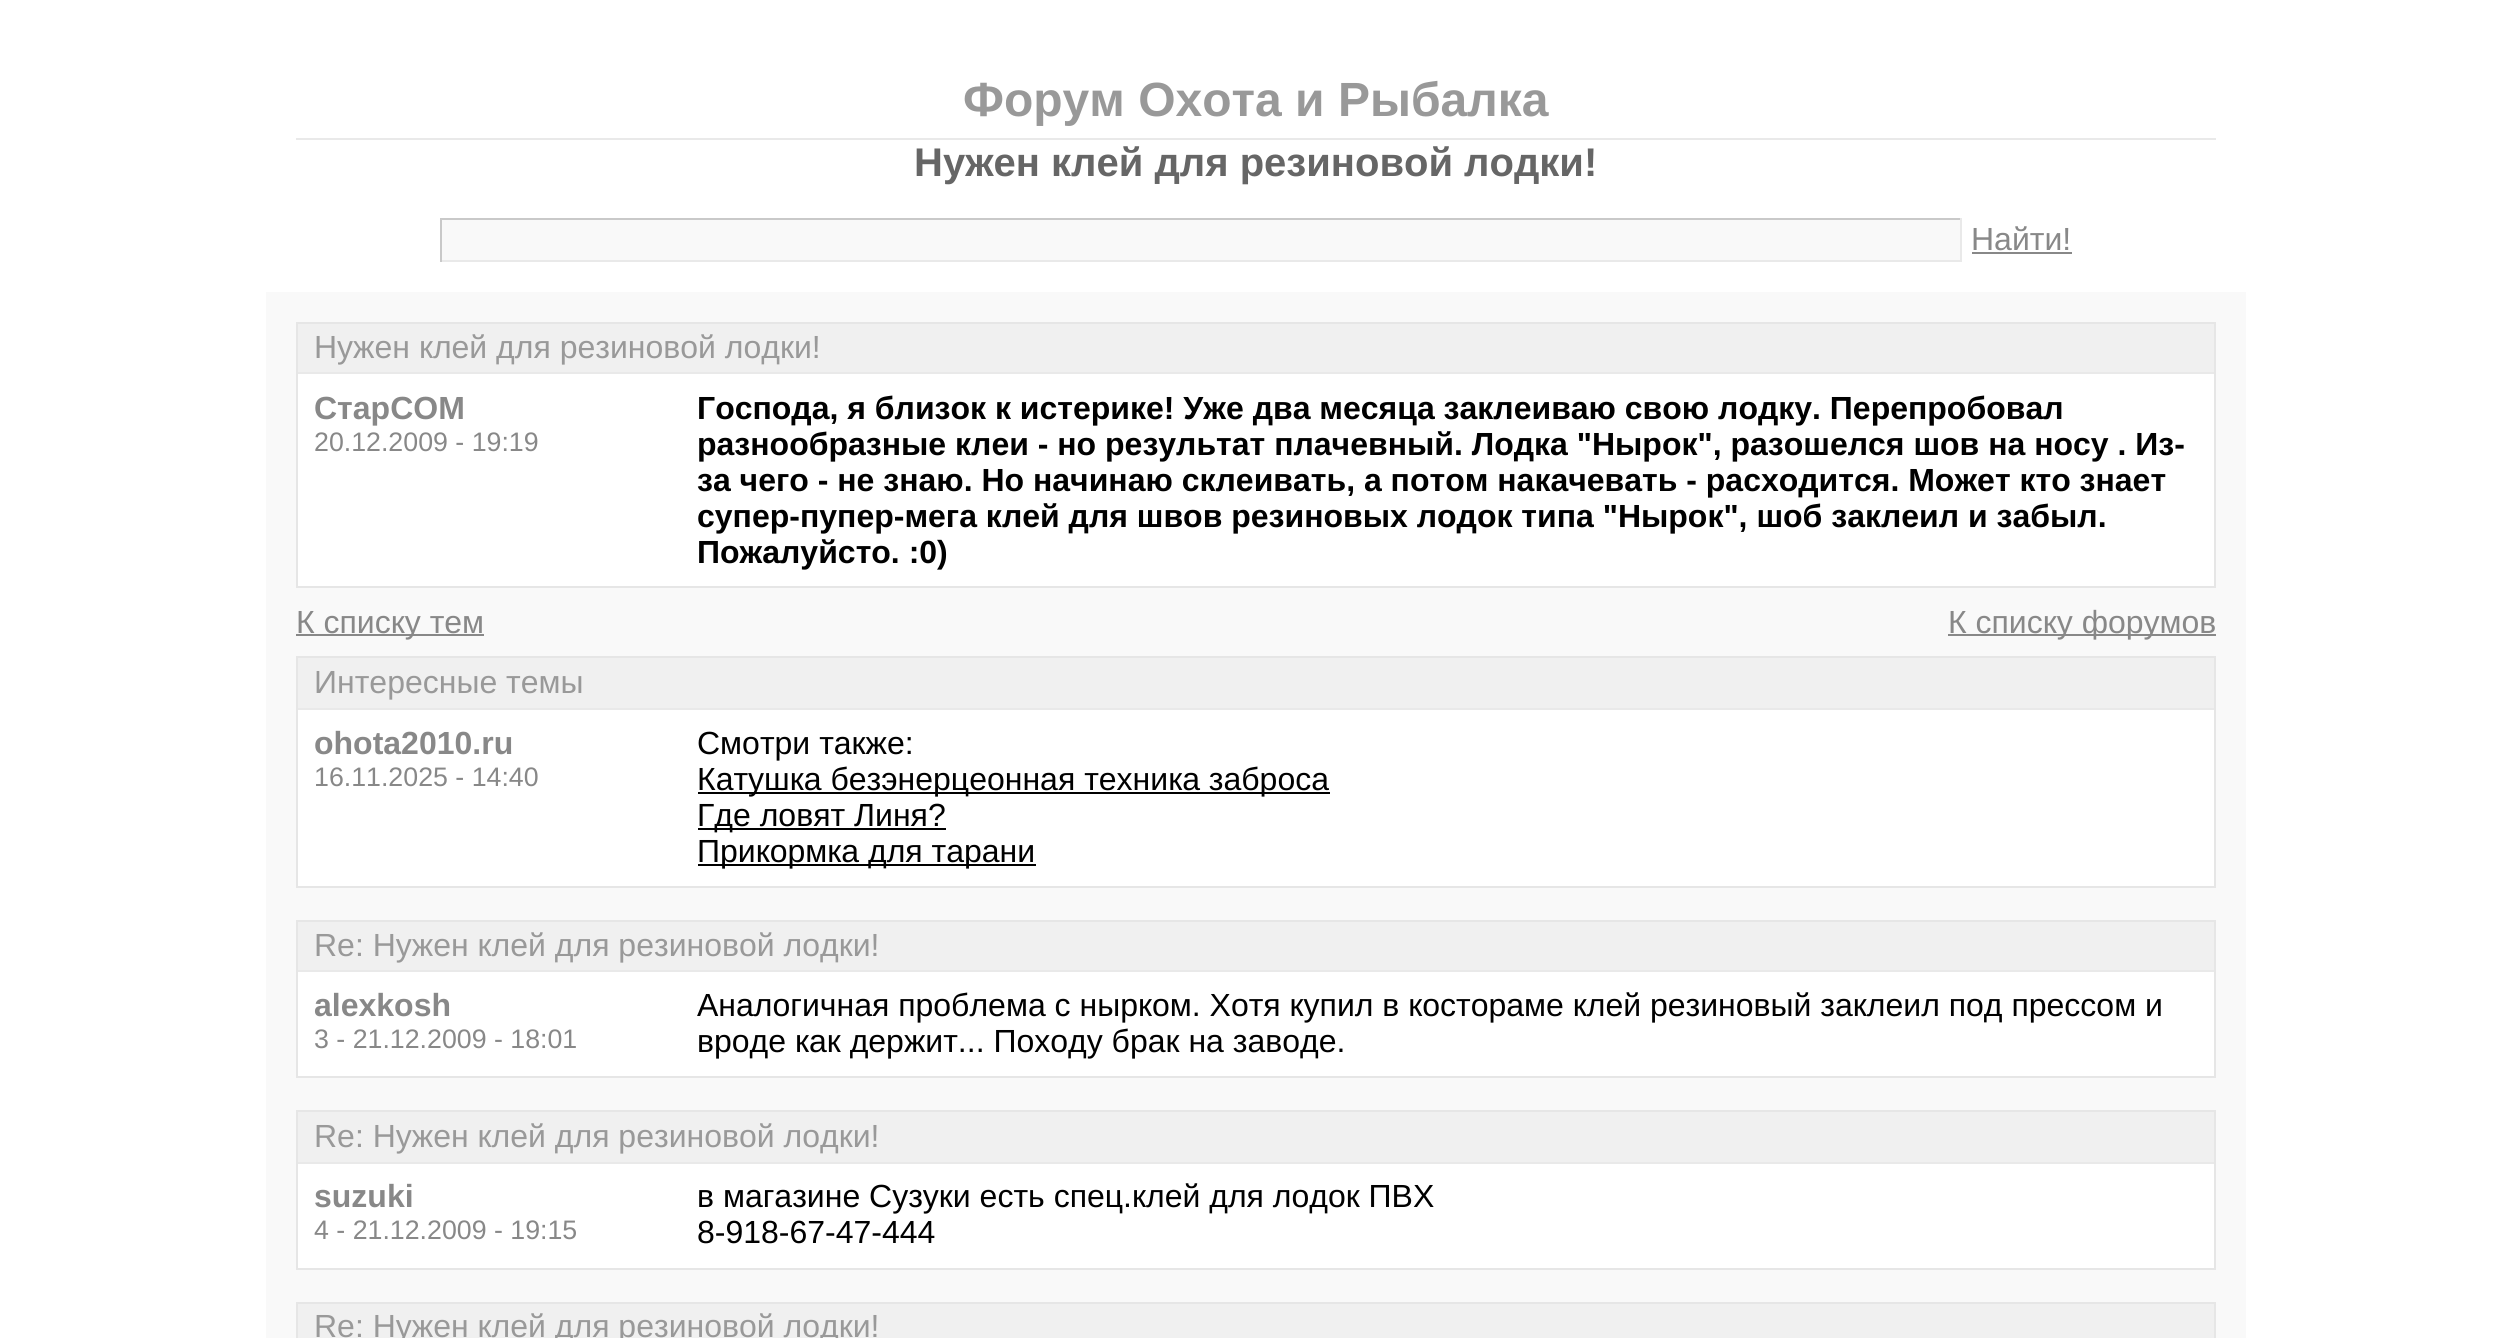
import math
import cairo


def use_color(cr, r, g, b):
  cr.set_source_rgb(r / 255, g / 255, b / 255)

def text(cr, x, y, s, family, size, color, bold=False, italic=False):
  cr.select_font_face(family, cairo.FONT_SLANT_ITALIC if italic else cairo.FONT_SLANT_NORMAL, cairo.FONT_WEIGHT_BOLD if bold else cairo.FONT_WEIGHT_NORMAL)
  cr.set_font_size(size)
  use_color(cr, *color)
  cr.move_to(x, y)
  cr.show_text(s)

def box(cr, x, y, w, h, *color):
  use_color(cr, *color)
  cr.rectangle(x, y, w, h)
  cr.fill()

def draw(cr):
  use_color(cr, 255, 255, 255)
  cr.paint()
  box(cr, 296, 138, 1920, 2, 233, 233, 233)
  box(cr, 442, 220, 1518, 40, 249, 249, 249)
  box(cr, 440, 218, 1522, 2, 201, 201, 201)
  box(cr, 1960, 218, 2, 44, 233, 233, 233)
  box(cr, 440, 260, 1522, 2, 233, 233, 233)
  box(cr, 440, 218, 2, 44, 201, 201, 201)
  box(cr, 1972, 252, 100, 2, 136, 136, 136)
  box(cr, 266, 292, 1980, 1046, 249, 249, 249)
  box(cr, 298, 374, 1916, 212, 255, 255, 255)
  cr.rectangle(297, 323, 1918, 264)
  use_color(cr, 230, 230, 230)
  cr.stroke()
  box(cr, 298, 324, 1916, 48, 240, 240, 240)
  box(cr, 298, 372, 1916, 2, 233, 233, 233)
  box(cr, 296, 634, 188, 2, 136, 136, 136)
  box(cr, 1948, 634, 268, 2, 136, 136, 136)
  box(cr, 298, 710, 1916, 176, 255, 255, 255)
  cr.rectangle(297, 657, 1918, 230)
  use_color(cr, 230, 230, 230)
  cr.stroke()
  box(cr, 298, 658, 1916, 50, 240, 240, 240)
  box(cr, 298, 708, 1916, 2, 233, 233, 233)
  box(cr, 698, 792, 632, 2, 0, 0, 0)
  box(cr, 698, 828, 248, 2, 0, 0, 0)
  box(cr, 698, 864, 338, 2, 0, 0, 0)
  box(cr, 298, 972, 1916, 104, 255, 255, 255)
  cr.rectangle(297, 921, 1918, 156)
  use_color(cr, 230, 230, 230)
  cr.stroke()
  box(cr, 298, 922, 1916, 48, 240, 240, 240)
  box(cr, 298, 970, 1916, 2, 233, 233, 233)
  box(cr, 298, 1164, 1916, 104, 255, 255, 255)
  cr.rectangle(297, 1111, 1918, 158)
  use_color(cr, 230, 230, 230)
  cr.stroke()
  box(cr, 298, 1112, 1916, 50, 240, 240, 240)
  box(cr, 298, 1162, 1916, 2, 233, 233, 233)
  cr.rectangle(297, 1303, 1918, 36)
  use_color(cr, 230, 230, 230)
  cr.stroke()
  box(cr, 298, 1304, 1916, 34, 240, 240, 240)
  text(cr, 963, 116, "Форум Охота и Рыбалка", "Liberation Sans", 48, (153, 153, 153), bold=True)
  text(cr, 914, 176, "Нужен клей для резиновой лодки!", "Liberation Sans", 40, (102, 102, 102), bold=True)
  text(cr, 1971, 250, "Найти!", "Liberation Sans", 32, (136, 136, 136))
  text(cr, 314, 358, "Нужен клей для резиновой лодки!", "Liberation Sans", 32, (153, 153, 153))
  text(cr, 314, 419, "СтарСОМ", "Liberation Sans", 32, (136, 136, 136), bold=True)
  text(cr, 314, 451, "20.12.2009 - 19:19", "Liberation Sans", 26.75, (136, 136, 136))
  text(cr, 697, 419, "Господа, я близок к истерике! Уже два месяца заклеиваю свою лодку. Перепробовал", "Liberation Sans", 32, (0, 0, 0), bold=True)
  text(cr, 697, 455, "разнообразные клеи - но результат плачевный. Лодка \"Нырок\", разошелся шов на носу . Из-", "Liberation Sans", 32, (0, 0, 0), bold=True)
  text(cr, 697, 491, "за чего - не знаю. Но начинаю склеивать, а потом накачевать - расходится. Может кто знает", "Liberation Sans", 32, (0, 0, 0), bold=True)
  text(cr, 697, 527, "супер-пупер-мега клей для швов резиновых лодок типа \"Нырок\", шоб заклеил и забыл.", "Liberation Sans", 32, (0, 0, 0), bold=True)
  text(cr, 697, 563, "Пожалуйсто. :0)", "Liberation Sans", 32, (0, 0, 0), bold=True)
  text(cr, 296, 633, "К списку тем", "Liberation Sans", 32, (136, 136, 136))
  text(cr, 1948, 633, "К списку форумов", "Liberation Sans", 32, (136, 136, 136))
  text(cr, 314, 693, "Интересные темы", "Liberation Sans", 32, (153, 153, 153))
  text(cr, 314, 754, "ohota2010.ru", "Liberation Sans", 32, (136, 136, 136), bold=True)
  text(cr, 314, 786, "16.11.2025 - 14:40", "Liberation Sans", 26.75, (136, 136, 136))
  text(cr, 697, 754, "Смотри также:", "Liberation Sans", 32, (0, 0, 0))
  text(cr, 697, 790, "Катушка безэнерцеонная техника заброса", "Liberation Sans", 32, (0, 0, 0))
  text(cr, 697, 826, "Где ловят Линя?", "Liberation Sans", 32, (0, 0, 0))
  text(cr, 697, 862, "Прикормка для тарани", "Liberation Sans", 32, (0, 0, 0))
  text(cr, 314, 956, "Re: Нужен клей для резиновой лодки!", "Liberation Sans", 32, (153, 153, 153))
  text(cr, 314, 1016, "alexkosh", "Liberation Sans", 32, (136, 136, 136), bold=True)
  text(cr, 314, 1048, "3 - 21.12.2009 - 18:01", "Liberation Sans", 26.75, (136, 136, 136))
  text(cr, 697, 1016, "Аналогичная проблема с нырком. Хотя купил в костораме клей резиновый заклеил под прессом и", "Liberation Sans", 32, (0, 0, 0))
  text(cr, 697, 1052, "вроде как держит... Походу брак на заводе.", "Liberation Sans", 32, (0, 0, 0))
  text(cr, 314, 1147, "Re: Нужен клей для резиновой лодки!", "Liberation Sans", 32, (153, 153, 153))
  text(cr, 314, 1207, "suzuki", "Liberation Sans", 32, (136, 136, 136), bold=True)
  text(cr, 314, 1239, "4 - 21.12.2009 - 19:15", "Liberation Sans", 26.75, (136, 136, 136))
  text(cr, 697, 1207, "в магазине Сузуки есть спец.клей для лодок ПВХ", "Liberation Sans", 32, (0, 0, 0))
  text(cr, 697, 1243, "8-918-67-47-444", "Liberation Sans", 32, (0, 0, 0))
  text(cr, 314, 1337, "Re: Нужен клей для резиновой лодки!", "Liberation Sans", 32, (153, 153, 153))


surface = cairo.ImageSurface(cairo.FORMAT_RGB24, 2511, 1338)
cr = cairo.Context(surface)
options = cairo.FontOptions()
options.set_hint_metrics(cairo.HINT_METRICS_OFF)
options.set_hint_style(cairo.HINT_STYLE_NONE)
cr.set_font_options(options)
cr.set_miter_limit(4)
draw(cr)
surface.write_to_png("out.png")
